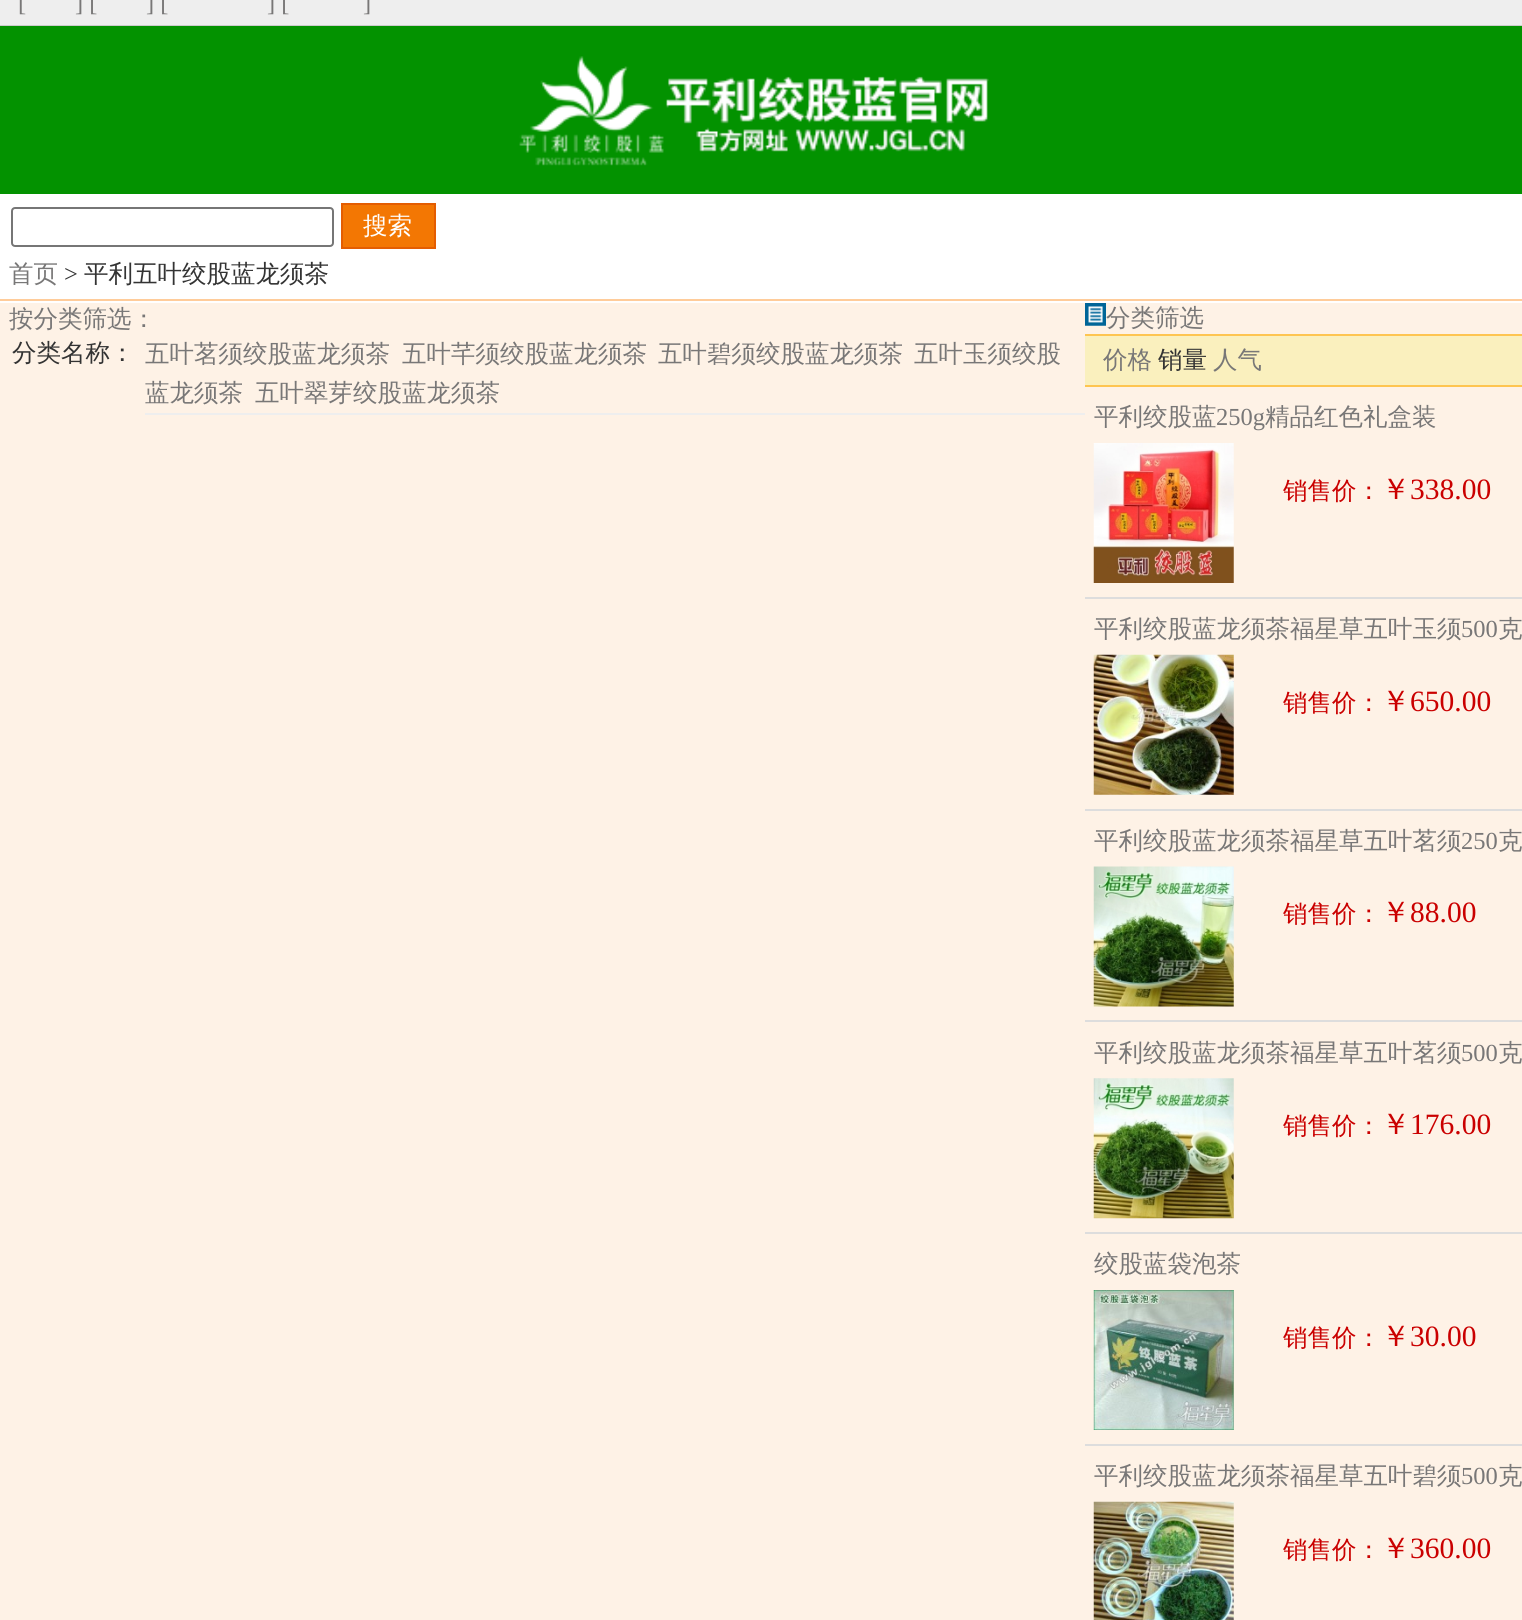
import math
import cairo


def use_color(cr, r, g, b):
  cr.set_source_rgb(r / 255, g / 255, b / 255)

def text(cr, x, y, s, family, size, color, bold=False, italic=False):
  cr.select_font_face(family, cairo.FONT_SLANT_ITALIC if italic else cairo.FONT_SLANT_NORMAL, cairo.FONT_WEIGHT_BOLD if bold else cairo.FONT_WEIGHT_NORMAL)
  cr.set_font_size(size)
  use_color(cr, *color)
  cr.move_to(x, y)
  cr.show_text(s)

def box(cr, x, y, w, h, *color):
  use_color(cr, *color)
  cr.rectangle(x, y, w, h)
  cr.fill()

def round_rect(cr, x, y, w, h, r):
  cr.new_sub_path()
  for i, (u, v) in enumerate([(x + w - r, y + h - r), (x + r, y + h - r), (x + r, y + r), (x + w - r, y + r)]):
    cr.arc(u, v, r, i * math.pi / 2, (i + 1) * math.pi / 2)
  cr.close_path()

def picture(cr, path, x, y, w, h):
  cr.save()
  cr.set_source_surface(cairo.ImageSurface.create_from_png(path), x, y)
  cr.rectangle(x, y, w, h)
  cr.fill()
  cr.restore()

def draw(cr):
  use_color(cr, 255, 255, 255)
  cr.paint()
  box(cr, 0, 0, 1522, 25, 238, 238, 238)
  box(cr, 0, 25, 1522, 1, 204, 204, 204)
  box(cr, 0, 26, 1522, 168, 3, 146, 0)
  picture(cr, "img_01.png", 519, 56, 470, 110)
  round_rect(cr, 12, 208, 321, 38, 3)
  use_color(cr, 118, 118, 118)
  cr.stroke()
  use_color(cr, 243, 119, 3)
  cr.rectangle(342, 204, 93, 44)
  cr.fill_preserve()
  use_color(cr, 228, 93, 1)
  cr.stroke()
  box(cr, 0, 299, 1522, 2, 255, 204, 154)
  box(cr, 0, 303, 1522, 1317, 254, 242, 230)
  box(cr, 145, 413, 940, 2, 238, 238, 238)
  picture(cr, "img_02.png", 1085, 303, 21, 23)
  box(cr, 1085, 336, 437, 49, 250, 240, 190)
  box(cr, 1085, 334, 437, 2, 254, 197, 81)
  box(cr, 1085, 385, 437, 2, 254, 197, 81)
  box(cr, 1085, 597, 437, 2, 221, 221, 221)
  picture(cr, "img_03.png", 1093, 443, 141, 140)
  box(cr, 1085, 809, 437, 2, 221, 221, 221)
  picture(cr, "img_04.png", 1093, 654, 141, 141)
  box(cr, 1085, 1020, 437, 2, 221, 221, 221)
  picture(cr, "img_05.png", 1093, 866, 141, 141)
  box(cr, 1085, 1232, 437, 2, 221, 221, 221)
  picture(cr, "img_06.png", 1093, 1078, 141, 141)
  box(cr, 1085, 1444, 437, 2, 221, 221, 221)
  picture(cr, "img_07.png", 1093, 1290, 141, 140)
  picture(cr, "img_08.png", 1093, 1501, 141, 119)
  text(cr, 18, 11, "[", "Liberation Serif", 24.5, (120, 119, 119))
  text(cr, 75, 11, "] [", "Liberation Serif", 24.5, (120, 119, 119))
  text(cr, 146, 11, "] [", "Liberation Serif", 24.5, (120, 119, 119))
  text(cr, 267, 11, "] [", "Liberation Serif", 24.5, (120, 119, 119))
  text(cr, 363, 11, "]", "Liberation Serif", 24.5, (120, 119, 119))
  text(cr, 363, 234, "搜索", "WenQuanYi Zen Hei Medium", 24.5, (255, 255, 255))
  text(cr, 9, 282, "首页", "WenQuanYi Zen Hei Medium", 24.5, (120, 119, 119))
  text(cr, 64, 282, ">", "Liberation Serif", 24.5, (51, 51, 51))
  text(cr, 84, 282, "平利五叶绞股蓝龙须茶", "WenQuanYi Zen Hei Medium", 24.5, (51, 51, 51))
  text(cr, 9, 327, "按分类筛选：", "WenQuanYi Zen Hei Medium", 24.5, (120, 119, 119))
  text(cr, 12, 361, "分类名称：", "WenQuanYi Zen Hei Medium", 24.5, (51, 51, 51))
  text(cr, 145, 362, "五叶茗须绞股蓝龙须茶", "WenQuanYi Zen Hei Medium", 24.5, (120, 119, 119))
  text(cr, 402, 362, "五叶芊须绞股蓝龙须茶", "WenQuanYi Zen Hei Medium", 24.5, (120, 119, 119))
  text(cr, 658, 362, "五叶碧须绞股蓝龙须茶", "WenQuanYi Zen Hei Medium", 24.5, (120, 119, 119))
  text(cr, 914, 362, "五叶玉须绞股", "WenQuanYi Zen Hei Medium", 24.5, (120, 119, 119))
  text(cr, 145, 401, "蓝龙须茶", "WenQuanYi Zen Hei Medium", 24.5, (120, 119, 119))
  text(cr, 255, 401, "五叶翠芽绞股蓝龙须茶", "WenQuanYi Zen Hei Medium", 24.5, (120, 119, 119))
  text(cr, 1106, 326, "分类筛选", "WenQuanYi Zen Hei Medium", 24.5, (120, 119, 119))
  text(cr, 1103, 368, "价格", "WenQuanYi Zen Hei Medium", 24.5, (120, 119, 119))
  text(cr, 1158, 368, "销量", "WenQuanYi Zen Hei Medium", 24.5, (51, 51, 51))
  text(cr, 1213, 368, "人气", "WenQuanYi Zen Hei Medium", 24.5, (120, 119, 119))
  text(cr, 1094, 425, "平利绞股蓝", "WenQuanYi Zen Hei Medium", 24.5, (120, 119, 119))
  text(cr, 1216, 425, "250g", "Liberation Serif", 24.5, (120, 119, 119))
  text(cr, 1265, 425, "精品红色礼盒装", "WenQuanYi Zen Hei Medium", 24.5, (120, 119, 119))
  text(cr, 1283, 499, "销售价：", "WenQuanYi Zen Hei Medium", 24.5, (202, 0, 0))
  text(cr, 1381, 499, "￥", "WenQuanYi Zen Hei Medium", 29.5, (202, 0, 0))
  text(cr, 1410, 499, "338.00", "Liberation Serif", 29.5, (202, 0, 0))
  text(cr, 1094, 637, "平利绞股蓝龙须茶福星草五叶玉须", "WenQuanYi Zen Hei Medium", 24.5, (120, 119, 119))
  text(cr, 1461, 637, "500", "Liberation Serif", 24.5, (120, 119, 119))
  text(cr, 1498, 637, "克", "WenQuanYi Zen Hei Medium", 24.5, (120, 119, 119))
  text(cr, 1283, 711, "销售价：", "WenQuanYi Zen Hei Medium", 24.5, (202, 0, 0))
  text(cr, 1381, 711, "￥", "WenQuanYi Zen Hei Medium", 29.5, (202, 0, 0))
  text(cr, 1410, 711, "650.00", "Liberation Serif", 29.5, (202, 0, 0))
  text(cr, 1094, 849, "平利绞股蓝龙须茶福星草五叶茗须", "WenQuanYi Zen Hei Medium", 24.5, (120, 119, 119))
  text(cr, 1461, 849, "250", "Liberation Serif", 24.5, (120, 119, 119))
  text(cr, 1498, 849, "克", "WenQuanYi Zen Hei Medium", 24.5, (120, 119, 119))
  text(cr, 1283, 922, "销售价：", "WenQuanYi Zen Hei Medium", 24.5, (202, 0, 0))
  text(cr, 1381, 922, "￥", "WenQuanYi Zen Hei Medium", 29.5, (202, 0, 0))
  text(cr, 1410, 922, "88.00", "Liberation Serif", 29.5, (202, 0, 0))
  text(cr, 1094, 1061, "平利绞股蓝龙须茶福星草五叶茗须", "WenQuanYi Zen Hei Medium", 24.5, (120, 119, 119))
  text(cr, 1461, 1061, "500", "Liberation Serif", 24.5, (120, 119, 119))
  text(cr, 1498, 1061, "克", "WenQuanYi Zen Hei Medium", 24.5, (120, 119, 119))
  text(cr, 1283, 1134, "销售价：", "WenQuanYi Zen Hei Medium", 24.5, (202, 0, 0))
  text(cr, 1381, 1134, "￥", "WenQuanYi Zen Hei Medium", 29.5, (202, 0, 0))
  text(cr, 1410, 1134, "176.00", "Liberation Serif", 29.5, (202, 0, 0))
  text(cr, 1094, 1272, "绞股蓝袋泡茶", "WenQuanYi Zen Hei Medium", 24.5, (120, 119, 119))
  text(cr, 1283, 1346, "销售价：", "WenQuanYi Zen Hei Medium", 24.5, (202, 0, 0))
  text(cr, 1381, 1346, "￥", "WenQuanYi Zen Hei Medium", 29.5, (202, 0, 0))
  text(cr, 1410, 1346, "30.00", "Liberation Serif", 29.5, (202, 0, 0))
  text(cr, 1094, 1484, "平利绞股蓝龙须茶福星草五叶碧须", "WenQuanYi Zen Hei Medium", 24.5, (120, 119, 119))
  text(cr, 1461, 1484, "500", "Liberation Serif", 24.5, (120, 119, 119))
  text(cr, 1498, 1484, "克", "WenQuanYi Zen Hei Medium", 24.5, (120, 119, 119))
  text(cr, 1283, 1558, "销售价：", "WenQuanYi Zen Hei Medium", 24.5, (202, 0, 0))
  text(cr, 1381, 1558, "￥", "WenQuanYi Zen Hei Medium", 29.5, (202, 0, 0))
  text(cr, 1410, 1558, "360.00", "Liberation Serif", 29.5, (202, 0, 0))


surface = cairo.ImageSurface(cairo.FORMAT_RGB24, 1522, 1620)
cr = cairo.Context(surface)
options = cairo.FontOptions()
options.set_hint_metrics(cairo.HINT_METRICS_OFF)
options.set_hint_style(cairo.HINT_STYLE_NONE)
cr.set_font_options(options)
cr.set_miter_limit(4)
draw(cr)
surface.write_to_png("out.png")
